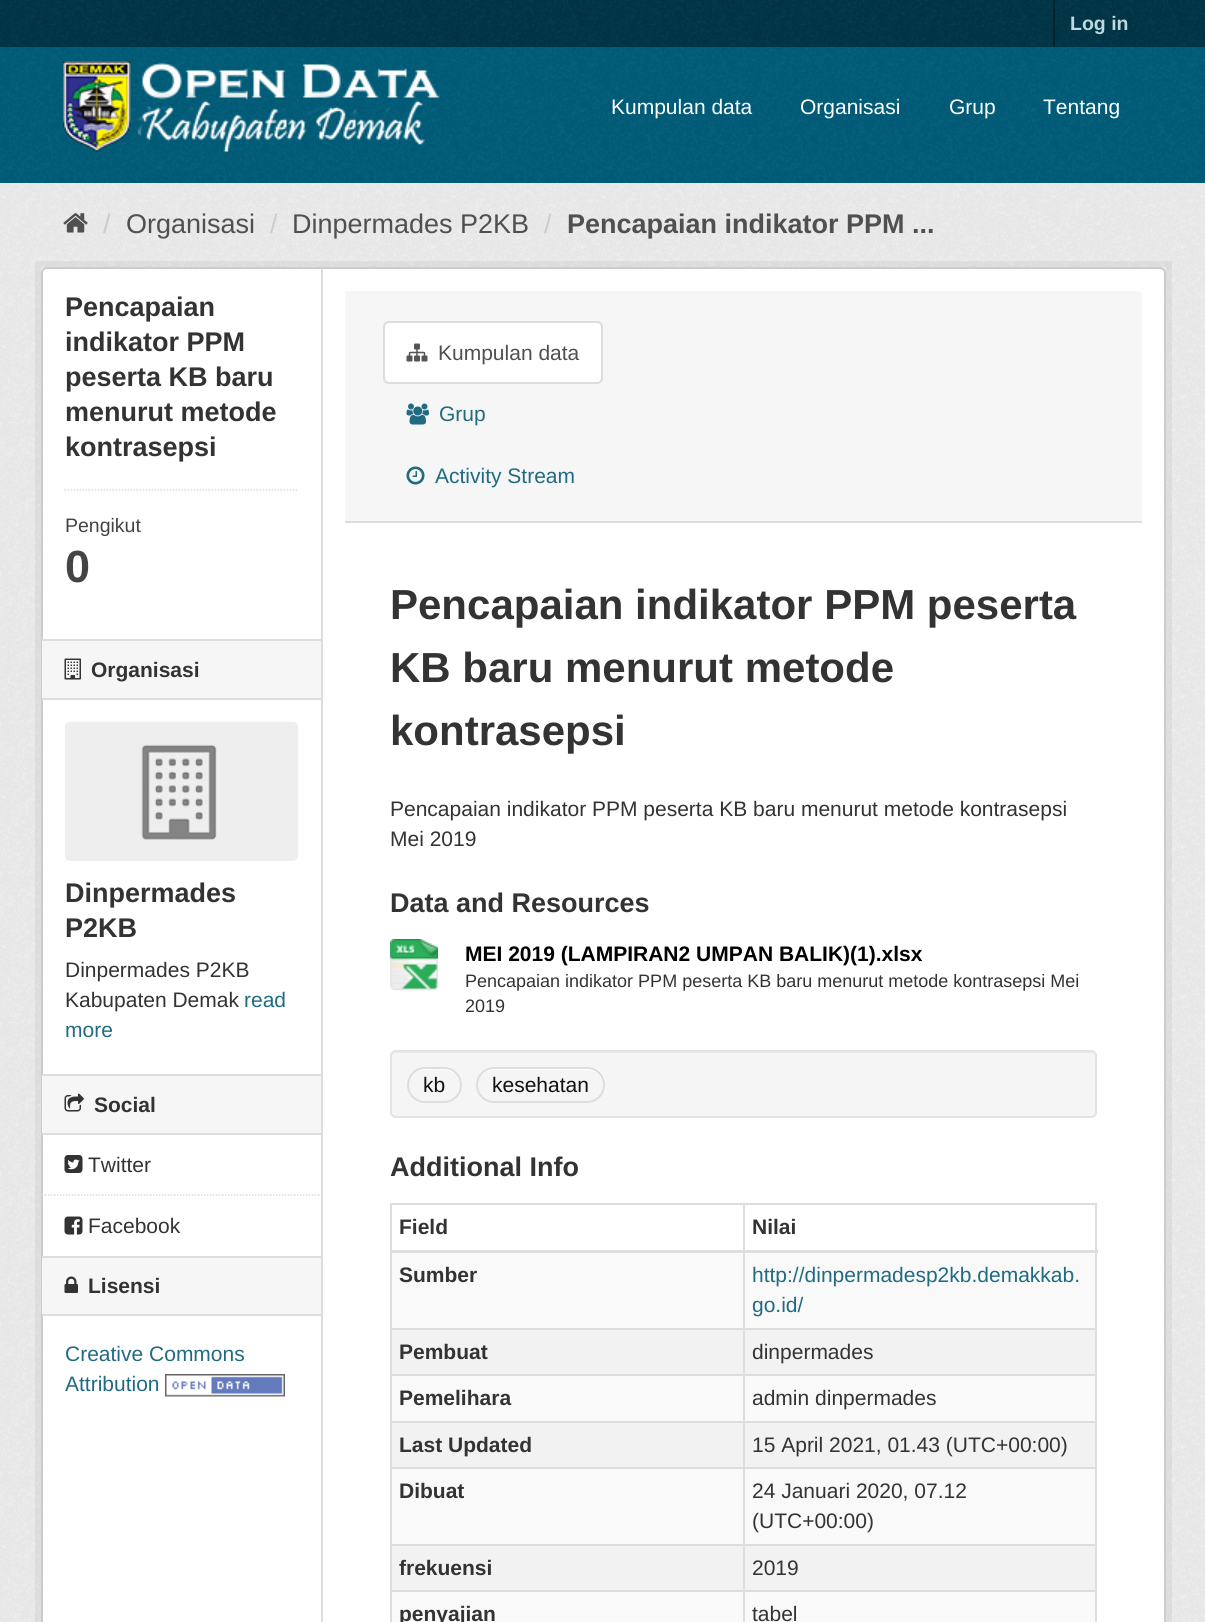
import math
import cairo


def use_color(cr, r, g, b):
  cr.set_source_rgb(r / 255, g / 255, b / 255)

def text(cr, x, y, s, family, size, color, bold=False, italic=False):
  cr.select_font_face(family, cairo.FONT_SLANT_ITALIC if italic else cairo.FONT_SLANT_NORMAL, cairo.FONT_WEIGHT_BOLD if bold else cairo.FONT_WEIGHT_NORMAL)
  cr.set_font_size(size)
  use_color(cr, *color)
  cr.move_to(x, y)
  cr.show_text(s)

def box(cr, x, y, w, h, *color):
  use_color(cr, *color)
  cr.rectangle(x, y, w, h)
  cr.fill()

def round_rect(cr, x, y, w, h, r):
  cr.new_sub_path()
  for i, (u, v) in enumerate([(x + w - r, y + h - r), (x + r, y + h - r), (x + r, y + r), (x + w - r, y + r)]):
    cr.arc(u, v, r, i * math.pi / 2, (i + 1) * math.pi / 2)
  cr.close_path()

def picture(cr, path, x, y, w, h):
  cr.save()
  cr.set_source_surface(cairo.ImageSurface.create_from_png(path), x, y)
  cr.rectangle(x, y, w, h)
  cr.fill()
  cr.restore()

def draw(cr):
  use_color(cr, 0, 54, 71)
  cr.paint()
  picture(cr, "img_01.png", 0, 0, 1205, 46)
  box(cr, 1053, 0, 2, 47, 0, 35, 46)
  box(cr, 0, 47, 1205, 136, 0, 93, 122)
  picture(cr, "img_02.png", 0, 47, 1205, 136)
  picture(cr, "img_03.png", 63, 61, 377, 91)
  box(cr, 0, 183, 1205, 1439, 238, 238, 238)
  picture(cr, "img_04.png", 0, 183, 1205, 1439)
  picture(cr, "img_05.png", 63, 213, 25, 20)
  cr.rectangle(38, 264, 1131, 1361)
  cr.set_source_rgba(0, 0, 0, 0.05)
  cr.set_line_width(6)
  cr.stroke()
  use_color(cr, 255, 255, 255)
  round_rect(cr, 42, 268, 1123, 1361, 5)
  cr.fill_preserve()
  use_color(cr, 204, 204, 204)
  cr.set_line_width(2)
  cr.stroke()
  cr.new_path()
  cr.move_to(64.5, 490)
  cr.line_to(298.5, 490)
  use_color(cr, 221, 221, 221)
  cr.set_line_width(1.5)
  cr.set_dash([1.5, 1.5])
  cr.stroke()
  box(cr, 42, 641, 279, 57, 246, 246, 246)
  box(cr, 42, 639, 279, 2, 221, 221, 221)
  box(cr, 42, 698, 279, 2, 221, 221, 221)
  picture(cr, "img_06.png", 64, 658, 17, 22)
  picture(cr, "img_07.png", 64, 721, 235, 140)
  box(cr, 42, 1076, 279, 57, 246, 246, 246)
  box(cr, 42, 1074, 279, 2, 221, 221, 221)
  box(cr, 42, 1133, 279, 2, 221, 221, 221)
  picture(cr, "img_08.png", 64, 1093, 20, 19)
  cr.new_path()
  cr.move_to(42, 1195)
  cr.line_to(321, 1195)
  cr.stroke()
  picture(cr, "img_09.png", 64, 1155, 19, 18)
  picture(cr, "img_10.png", 64, 1216, 19, 19)
  box(cr, 42, 1258, 279, 56, 246, 246, 246)
  box(cr, 42, 1256, 279, 2, 221, 221, 221)
  box(cr, 42, 1314, 279, 2, 221, 221, 221)
  picture(cr, "img_11.png", 64, 1276, 14, 17)
  picture(cr, "img_12.png", 165, 1374, 120, 23)
  box(cr, 321, 269, 2, 1353, 221, 221, 221)
  use_color(cr, 246, 246, 246)
  cr.new_path()
  cr.move_to(345, 291)
  cr.line_to(1137, 291)
  cr.curve_to(1140, 291, 1142, 293, 1142, 296)
  cr.line_to(1142, 522)
  cr.line_to(345, 522)
  cr.close_path()
  cr.fill()
  box(cr, 345, 521, 797, 2, 221, 221, 221)
  use_color(cr, 255, 255, 255)
  round_rect(cr, 384, 322, 218, 61, 5)
  cr.fill_preserve()
  use_color(cr, 221, 221, 221)
  cr.set_line_width(2)
  cr.set_dash([])
  cr.stroke()
  picture(cr, "img_13.png", 406, 343, 22, 19)
  picture(cr, "img_14.png", 406, 403, 23, 22)
  picture(cr, "img_15.png", 406, 466, 19, 19)
  picture(cr, "img_16.png", 390, 939, 48, 52)
  use_color(cr, 245, 245, 245)
  round_rect(cr, 390, 1050, 707, 68, 6)
  cr.fill()
  use_color(cr, 233, 233, 233)
  cr.new_path()
  cr.move_to(396, 1053)
  cr.line_to(1090, 1053)
  cr.curve_to(1093, 1053, 1095, 1055, 1095, 1058)
  cr.curve_to(1095, 1055, 1093, 1052, 1090, 1052)
  cr.line_to(397, 1052)
  cr.curve_to(394, 1052, 392, 1055, 392, 1058)
  cr.curve_to(392, 1055, 394, 1053, 396, 1053)
  cr.close_path()
  cr.fill()
  round_rect(cr, 391, 1051, 705, 66, 5)
  use_color(cr, 227, 227, 227)
  cr.stroke()
  use_color(cr, 255, 255, 255)
  cr.new_path()
  cr.move_to(424, 1070)
  cr.curve_to(436, 1070, 453, 1066, 459, 1080)
  cr.curve_to(461, 1083, 461, 1088, 460, 1091)
  cr.curve_to(464, 1082, 458, 1070, 448, 1068)
  cr.line_to(421, 1068)
  cr.curve_to(412, 1070, 406, 1079, 408, 1088)
  cr.curve_to(407, 1079, 413, 1070, 424, 1070)
  cr.close_path()
  cr.fill()
  round_rect(cr, 408, 1068, 53, 34, 17)
  use_color(cr, 221, 221, 221)
  cr.stroke()
  use_color(cr, 255, 255, 255)
  cr.new_path()
  cr.move_to(494, 1070)
  cr.line_to(586, 1070)
  cr.curve_to(596, 1070, 603, 1077, 603, 1085)
  cr.line_to(603, 1084)
  cr.curve_to(603, 1075, 596, 1068, 586, 1068)
  cr.line_to(494, 1068)
  cr.curve_to(484, 1068, 477, 1075, 477, 1084)
  cr.line_to(477, 1085)
  cr.curve_to(477, 1077, 484, 1070, 494, 1070)
  cr.close_path()
  cr.fill()
  round_rect(cr, 477, 1068, 127, 34, 17)
  use_color(cr, 221, 221, 221)
  cr.stroke()
  box(cr, 390, 1203, 707, 2, 221, 221, 221)
  box(cr, 1095, 1203, 2, 419, 221, 221, 221)
  box(cr, 390, 1203, 2, 419, 221, 221, 221)
  box(cr, 392, 1253, 703, 75, 249, 249, 249)
  box(cr, 743, 1328, 354, 2, 221, 221, 221)
  box(cr, 743, 1374, 354, 2, 221, 221, 221)
  box(cr, 392, 1376, 703, 45, 249, 249, 249)
  box(cr, 743, 1421, 354, 2, 221, 221, 221)
  box(cr, 743, 1467, 354, 2, 221, 221, 221)
  box(cr, 392, 1469, 703, 75, 249, 249, 249)
  box(cr, 743, 1544, 354, 2, 221, 221, 221)
  box(cr, 743, 1590, 354, 2, 221, 221, 221)
  box(cr, 392, 1592, 703, 30, 249, 249, 249)
  box(cr, 743, 1590, 2, 32, 221, 221, 221)
  box(cr, 390, 1590, 354, 2, 221, 221, 221)
  box(cr, 743, 1544, 2, 48, 221, 221, 221)
  box(cr, 390, 1544, 354, 2, 221, 221, 221)
  box(cr, 743, 1467, 2, 78, 221, 221, 221)
  box(cr, 390, 1467, 354, 2, 221, 221, 221)
  box(cr, 743, 1421, 2, 48, 221, 221, 221)
  box(cr, 390, 1421, 354, 2, 221, 221, 221)
  box(cr, 743, 1374, 2, 48, 221, 221, 221)
  box(cr, 390, 1374, 354, 2, 221, 221, 221)
  box(cr, 743, 1328, 2, 48, 221, 221, 221)
  box(cr, 390, 1328, 354, 2, 221, 221, 221)
  box(cr, 743, 1203, 2, 126, 221, 221, 221)
  box(cr, 390, 1250, 708, 3, 221, 221, 221)
  box(cr, 392, 1330, 351, 44, 242, 242, 242)
  box(cr, 745, 1330, 350, 44, 242, 242, 242)
  box(cr, 392, 1423, 351, 44, 242, 242, 242)
  box(cr, 745, 1423, 350, 44, 242, 242, 242)
  box(cr, 392, 1546, 351, 44, 242, 242, 242)
  box(cr, 745, 1546, 350, 44, 242, 242, 242)
  text(cr, 1070, 30, "Log in", "Liberation Sans", 19.5, (191, 215, 222), bold=True)
  text(cr, 611, 114, "Kumpulan data", "Liberation Sans", 21, (255, 255, 255))
  text(cr, 800, 114, "Organisasi", "Liberation Sans", 21, (255, 255, 255))
  text(cr, 949, 114, "Grup", "Liberation Sans", 21, (255, 255, 255))
  text(cr, 1043, 114, "Tentang", "Liberation Sans", 21, (255, 255, 255))
  text(cr, 103, 233, "/", "Liberation Sans", 27, (204, 204, 204))
  text(cr, 126, 233, "Organisasi", "Liberation Sans", 27, (80, 80, 80))
  text(cr, 270, 233, "/", "Liberation Sans", 27, (204, 204, 204))
  text(cr, 292, 233, "Dinpermades P2KB", "Liberation Sans", 27, (80, 80, 80))
  text(cr, 544, 233, "/", "Liberation Sans", 27, (204, 204, 204))
  text(cr, 567, 233, "Pencapaian indikator PPM ...", "Liberation Sans", 27, (80, 80, 80), bold=True)
  text(cr, 65, 316, "Pencapaian", "Liberation Sans", 27, (51, 51, 51), bold=True)
  text(cr, 65, 351, "indikator PPM", "Liberation Sans", 27, (51, 51, 51), bold=True)
  text(cr, 65, 386, "peserta KB baru", "Liberation Sans", 27, (51, 51, 51), bold=True)
  text(cr, 65, 421, "menurut metode", "Liberation Sans", 27, (51, 51, 51), bold=True)
  text(cr, 65, 456, "kontrasepsi", "Liberation Sans", 27, (51, 51, 51), bold=True)
  text(cr, 65, 532, "Pengikut", "Liberation Sans", 19.5, (68, 68, 68))
  text(cr, 65, 582, "0", "Liberation Sans", 45, (68, 68, 68), bold=True)
  text(cr, 91, 677, "Organisasi", "Liberation Sans", 21, (51, 51, 51), bold=True)
  text(cr, 65, 902, "Dinpermades", "Liberation Sans", 27, (51, 51, 51), bold=True)
  text(cr, 65, 937, "P2KB", "Liberation Sans", 27, (51, 51, 51), bold=True)
  text(cr, 65, 977, "Dinpermades P2KB", "Liberation Sans", 21, (51, 51, 51))
  text(cr, 65, 1007, "Kabupaten Demak", "Liberation Sans", 21, (51, 51, 51))
  text(cr, 244, 1007, "read", "Liberation Sans", 21, (32, 107, 130))
  text(cr, 65, 1037, "more", "Liberation Sans", 21, (32, 107, 130))
  text(cr, 94, 1112, "Social", "Liberation Sans", 21, (51, 51, 51), bold=True)
  text(cr, 88, 1172, "Twitter", "Liberation Sans", 21, (51, 51, 51))
  text(cr, 88, 1233, "Facebook", "Liberation Sans", 21, (51, 51, 51))
  text(cr, 88, 1293, "Lisensi", "Liberation Sans", 21, (51, 51, 51), bold=True)
  text(cr, 65, 1361, "Creative Commons", "Liberation Sans", 21, (32, 107, 130))
  text(cr, 65, 1391, "Attribution", "Liberation Sans", 21, (32, 107, 130))
  text(cr, 438, 360, "Kumpulan data", "Liberation Sans", 21, (80, 80, 80))
  text(cr, 439, 421, "Grup", "Liberation Sans", 21, (32, 107, 130))
  text(cr, 435, 483, "Activity Stream", "Liberation Sans", 21, (32, 107, 130))
  text(cr, 390, 619, "Pencapaian indikator PPM peserta", "Liberation Sans", 42, (51, 51, 51), bold=True)
  text(cr, 390, 682, "KB baru menurut metode", "Liberation Sans", 42, (51, 51, 51), bold=True)
  text(cr, 390, 745, "kontrasepsi", "Liberation Sans", 42, (51, 51, 51), bold=True)
  text(cr, 390, 816, "Pencapaian indikator PPM peserta KB baru menurut metode kontrasepsi", "Liberation Sans", 21, (51, 51, 51))
  text(cr, 390, 846, "Mei 2019", "Liberation Sans", 21, (51, 51, 51))
  text(cr, 390, 912, "Data and Resources", "Liberation Sans", 27, (51, 51, 51), bold=True)
  text(cr, 465, 961, "MEI 2019 (LAMPIRAN2 UMPAN BALIK)(1).xlsx", "Liberation Sans", 21, (0, 0, 0), bold=True)
  text(cr, 465, 987, "Pencapaian indikator PPM peserta KB baru menurut metode kontrasepsi Mei", "Liberation Sans", 18, (51, 51, 51))
  text(cr, 465, 1012, "2019", "Liberation Sans", 18, (51, 51, 51))
  text(cr, 423, 1092, "kb", "Liberation Sans", 21, (17, 17, 17))
  text(cr, 492, 1092, "kesehatan", "Liberation Sans", 21, (17, 17, 17))
  text(cr, 390, 1176, "Additional Info", "Liberation Sans", 27, (51, 51, 51), bold=True)
  text(cr, 399, 1234, "Field", "Liberation Sans", 21, (51, 51, 51), bold=True)
  text(cr, 752, 1234, "Nilai", "Liberation Sans", 21, (51, 51, 51), bold=True)
  text(cr, 399, 1282, "Sumber", "Liberation Sans", 21, (51, 51, 51), bold=True)
  text(cr, 752, 1282, "http://dinpermadesp2kb.demakkab.", "Liberation Sans", 21, (32, 107, 130))
  text(cr, 752, 1312, "go.id/", "Liberation Sans", 21, (32, 107, 130))
  text(cr, 399, 1359, "Pembuat", "Liberation Sans", 21, (51, 51, 51), bold=True)
  text(cr, 752, 1359, "dinpermades", "Liberation Sans", 21, (51, 51, 51))
  text(cr, 399, 1405, "Pemelihara", "Liberation Sans", 21, (51, 51, 51), bold=True)
  text(cr, 752, 1405, "admin dinpermades", "Liberation Sans", 21, (51, 51, 51))
  text(cr, 399, 1452, "Last Updated", "Liberation Sans", 21, (51, 51, 51), bold=True)
  text(cr, 752, 1452, "15 April 2021, 01.43 (UTC+00:00)", "Liberation Sans", 21, (51, 51, 51))
  text(cr, 399, 1498, "Dibuat", "Liberation Sans", 21, (51, 51, 51), bold=True)
  text(cr, 752, 1498, "24 Januari 2020, 07.12", "Liberation Sans", 21, (51, 51, 51))
  text(cr, 752, 1528, "(UTC+00:00)", "Liberation Sans", 21, (51, 51, 51))
  text(cr, 399, 1575, "frekuensi", "Liberation Sans", 21, (51, 51, 51), bold=True)
  text(cr, 752, 1575, "2019", "Liberation Sans", 21, (51, 51, 51))
  text(cr, 399, 1621, "penyajian", "Liberation Sans", 21, (51, 51, 51), bold=True)
  text(cr, 752, 1621, "tabel", "Liberation Sans", 21, (51, 51, 51))


surface = cairo.ImageSurface(cairo.FORMAT_RGB24, 1205, 1622)
cr = cairo.Context(surface)
options = cairo.FontOptions()
options.set_hint_metrics(cairo.HINT_METRICS_OFF)
options.set_hint_style(cairo.HINT_STYLE_NONE)
cr.set_font_options(options)
cr.set_miter_limit(4)
draw(cr)
surface.write_to_png("out.png")
